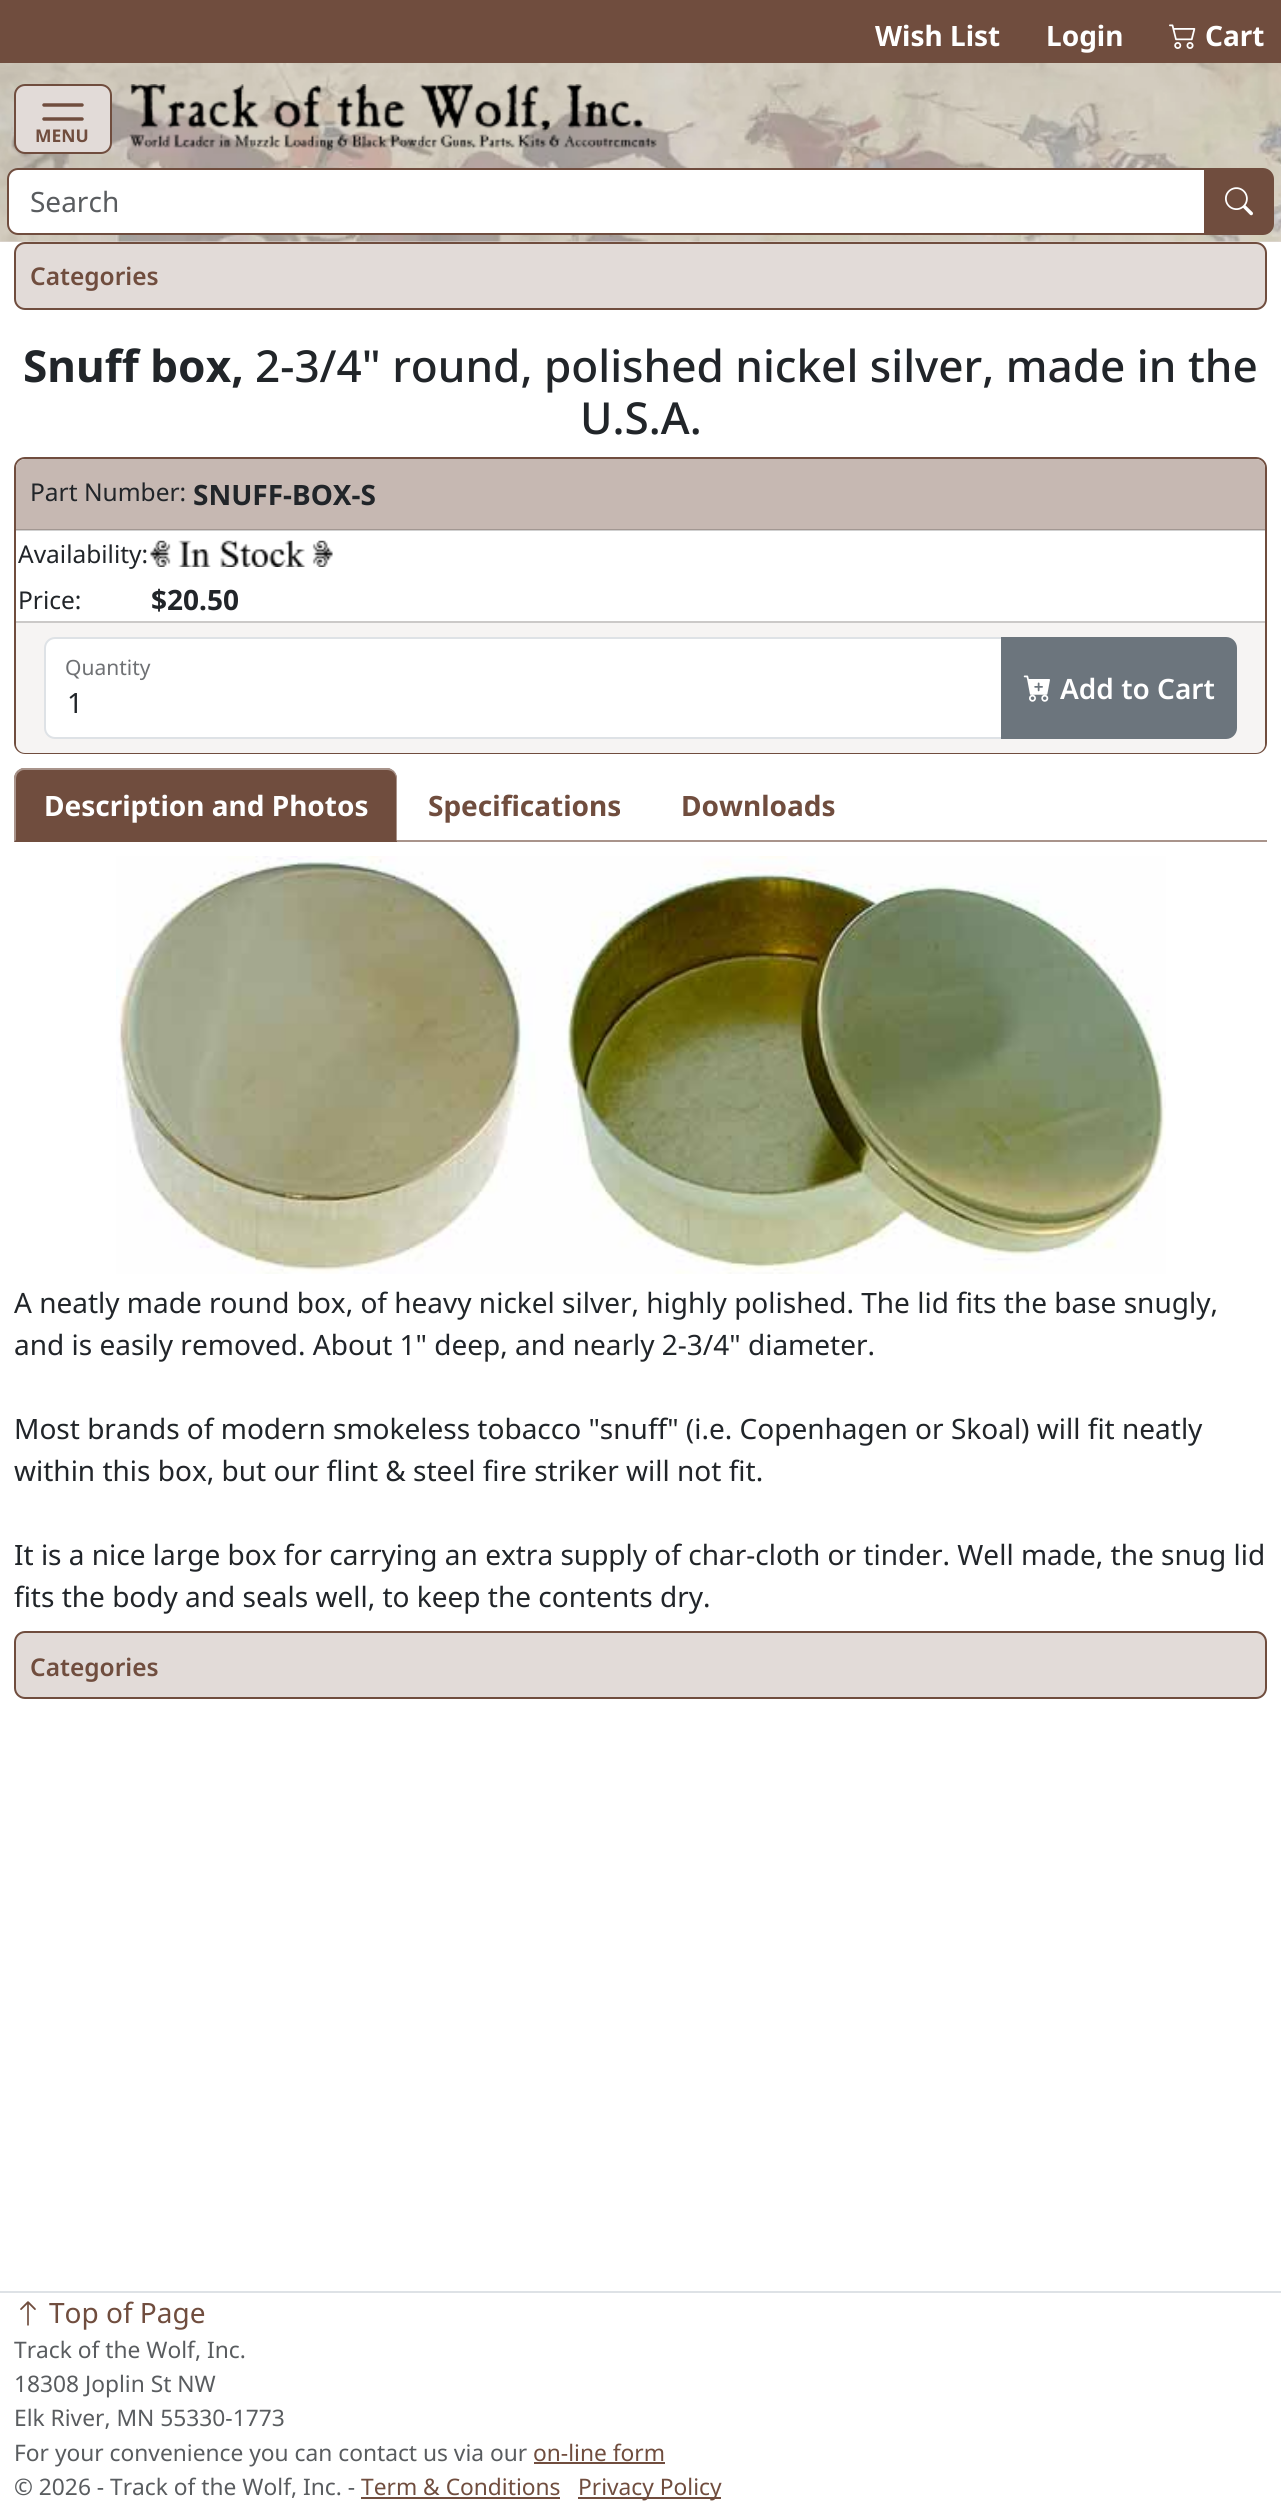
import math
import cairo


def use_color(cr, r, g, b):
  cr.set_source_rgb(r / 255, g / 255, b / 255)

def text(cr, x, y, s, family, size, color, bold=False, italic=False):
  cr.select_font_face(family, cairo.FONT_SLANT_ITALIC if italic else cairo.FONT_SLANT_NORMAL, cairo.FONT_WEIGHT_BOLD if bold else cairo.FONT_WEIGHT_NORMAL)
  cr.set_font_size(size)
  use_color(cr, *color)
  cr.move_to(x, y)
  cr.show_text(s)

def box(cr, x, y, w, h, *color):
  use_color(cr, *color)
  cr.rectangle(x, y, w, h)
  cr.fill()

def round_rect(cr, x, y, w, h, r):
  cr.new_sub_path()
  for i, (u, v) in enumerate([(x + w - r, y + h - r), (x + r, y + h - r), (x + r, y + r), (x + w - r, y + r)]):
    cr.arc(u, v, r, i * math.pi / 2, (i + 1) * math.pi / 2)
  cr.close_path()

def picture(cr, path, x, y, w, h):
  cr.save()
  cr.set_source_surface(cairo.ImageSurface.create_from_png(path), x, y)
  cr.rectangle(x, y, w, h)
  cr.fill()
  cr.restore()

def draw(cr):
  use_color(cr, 255, 255, 255)
  cr.paint()
  box(cr, 16, 530, 1249, 1, 209, 209, 209)
  box(cr, 0, 0, 1281, 63, 112, 77, 62)
  picture(cr, "img_01.png", 1169, 24, 27, 25)
  box(cr, 0, 241, 1281, 1, 226, 219, 216)
  picture(cr, "img_02.png", 0, 63, 1281, 179)
  round_rect(cr, 15, 85, 96, 68, 10)
  cr.fill_preserve()
  use_color(cr, 112, 77, 62)
  cr.stroke()
  cr.new_path()
  cr.move_to(44, 105)
  cr.line_to(82, 105)
  cr.move_to(44, 119)
  cr.line_to(82, 119)
  cr.move_to(44, 133)
  cr.line_to(82, 133)
  cr.set_line_width(3.5)
  cr.set_line_cap(cairo.LINE_CAP_ROUND)
  cr.stroke()
  use_color(cr, 226, 219, 216)
  round_rect(cr, 35, 126, 54, 18, 9)
  cr.fill()
  picture(cr, "img_03.png", 129, 84, 528, 67)
  use_color(cr, 255, 255, 255)
  cr.new_path()
  cr.move_to(18, 169)
  cr.line_to(1205, 169)
  cr.line_to(1205, 234)
  cr.line_to(18, 234)
  cr.curve_to(12.5, 234, 8, 229.5, 8, 224)
  cr.line_to(8, 179)
  cr.curve_to(8, 173.5, 12.5, 169, 18, 169)
  cr.close_path()
  cr.fill_preserve()
  use_color(cr, 112, 77, 62)
  cr.set_line_width(2)
  cr.set_line_cap(cairo.LINE_CAP_BUTT)
  cr.stroke()
  cr.new_path()
  cr.move_to(1204, 168)
  cr.line_to(1263, 168)
  cr.curve_to(1269, 168, 1274, 173, 1274, 179)
  cr.line_to(1274, 224)
  cr.curve_to(1274, 230, 1269, 235, 1263, 235)
  cr.line_to(1204, 235)
  cr.close_path()
  cr.fill()
  picture(cr, "img_04.png", 1225, 187, 28, 29)
  use_color(cr, 226, 219, 216)
  round_rect(cr, 15, 243, 1251, 66, 10)
  cr.fill_preserve()
  use_color(cr, 112, 77, 62)
  cr.stroke()
  round_rect(cr, 15, 458, 1251, 295, 10)
  cr.stroke()
  use_color(cr, 198, 184, 178)
  cr.new_path()
  cr.move_to(25, 459)
  cr.line_to(1256, 459)
  cr.curve_to(1261, 459, 1265, 463, 1265, 468)
  cr.line_to(1265, 530)
  cr.line_to(16, 530)
  cr.line_to(16, 468)
  cr.curve_to(16, 463, 20, 459, 25, 459)
  cr.close_path()
  cr.fill()
  box(cr, 16, 529, 1249, 1, 162, 151, 146)
  picture(cr, "img_05.png", 150, 540, 183, 27)
  use_color(cr, 246, 244, 243)
  cr.new_path()
  cr.move_to(16, 621)
  cr.line_to(1265, 621)
  cr.line_to(1265, 744)
  cr.curve_to(1265, 749, 1261, 753, 1256, 753)
  cr.line_to(25, 753)
  cr.curve_to(20, 753, 16, 749, 16, 744)
  cr.close_path()
  cr.fill()
  box(cr, 16, 621, 1249, 2, 203, 201, 200)
  use_color(cr, 255, 255, 255)
  cr.new_path()
  cr.move_to(55, 638)
  cr.line_to(1002, 638)
  cr.line_to(1002, 738)
  cr.line_to(55, 738)
  cr.curve_to(49.5, 738, 45, 733.5, 45, 728)
  cr.line_to(45, 648)
  cr.curve_to(45, 642.5, 49.5, 638, 55, 638)
  cr.close_path()
  cr.fill_preserve()
  use_color(cr, 222, 226, 230)
  cr.stroke()
  use_color(cr, 108, 117, 125)
  cr.new_path()
  cr.move_to(1002, 638)
  cr.line_to(1226, 638)
  cr.curve_to(1231.5, 638, 1236, 642.5, 1236, 648)
  cr.line_to(1236, 728)
  cr.curve_to(1236, 733.5, 1231.5, 738, 1226, 738)
  cr.line_to(1002, 738)
  cr.close_path()
  cr.fill_preserve()
  cr.stroke()
  picture(cr, "img_06.png", 1023, 675, 27, 27)
  box(cr, 397, 840, 870, 2, 169, 148, 139)
  use_color(cr, 112, 77, 62)
  cr.new_path()
  cr.move_to(25, 768)
  cr.line_to(386, 768)
  cr.curve_to(392, 768, 397, 773, 397, 779)
  cr.line_to(397, 842)
  cr.line_to(14, 842)
  cr.line_to(14, 779)
  cr.curve_to(14, 773, 19, 768, 25, 768)
  cr.close_path()
  cr.fill()
  use_color(cr, 169, 148, 139)
  cr.new_path()
  cr.move_to(24, 770)
  cr.curve_to(22, 770, 20, 771, 18, 773)
  cr.line_to(17, 771)
  cr.curve_to(18, 770, 20, 769, 22, 768)
  cr.line_to(389, 768)
  cr.curve_to(391, 769, 393, 770, 394, 771)
  cr.line_to(393, 772)
  cr.curve_to(392, 771, 389, 770, 387, 770)
  cr.close_path()
  cr.fill()
  cr.new_path()
  cr.move_to(394, 771)
  cr.curve_to(396, 773, 397, 776, 397, 779)
  cr.line_to(397, 842)
  cr.line_to(396, 840)
  cr.line_to(396, 779)
  cr.curve_to(396, 776, 395, 774, 393, 772)
  cr.close_path()
  cr.fill()
  use_color(cr, 112, 77, 62)
  cr.new_path()
  cr.move_to(397, 842)
  cr.line_to(14, 842)
  cr.line_to(16, 840)
  cr.line_to(396, 840)
  cr.close_path()
  cr.fill()
  use_color(cr, 169, 148, 139)
  cr.new_path()
  cr.move_to(14, 842)
  cr.line_to(16, 840)
  cr.line_to(16, 779)
  cr.curve_to(16, 777, 17, 774, 18, 773)
  cr.line_to(17, 771)
  cr.curve_to(15, 773, 14, 776, 14, 779)
  cr.close_path()
  cr.fill()
  picture(cr, "img_07.png", 116, 856, 1050, 418)
  use_color(cr, 226, 219, 216)
  round_rect(cr, 15, 1632, 1251, 66, 10)
  cr.fill_preserve()
  use_color(cr, 112, 77, 62)
  cr.stroke()
  box(cr, 0, 2291, 1281, 2, 222, 226, 230)
  picture(cr, "img_08.png", 20, 2301, 16, 25)
  box(cr, 534, 2462, 131, 2, 112, 77, 62)
  box(cr, 361, 2497, 199, 2, 112, 77, 62)
  box(cr, 578, 2497, 143, 2, 112, 77, 62)
  text(cr, 875, 46, "Wish List", "Noto Sans", 28, (255, 255, 255), bold=True)
  text(cr, 1046, 46, "Login", "Noto Sans", 28, (255, 255, 255), bold=True)
  text(cr, 1205, 46, "Cart", "Noto Sans", 28, (255, 255, 255), bold=True)
  text(cr, 35, 142, "MENU", "Noto Sans", 17.5, (112, 77, 62), bold=True)
  text(cr, 30, 212, "Search", "Noto Sans", 28, (89, 92, 95))
  text(cr, 30, 285, "Categories", "Noto Sans SemiBold", 24.5, (112, 77, 62))
  text(cr, 23, 382, "Snuff box,", "Noto Sans", 44.1, (33, 37, 41), bold=True)
  text(cr, 255, 382, "2-3/4\" round, polished nickel silver, made in the", "Noto Sans Medium", 44.1, (33, 37, 41))
  text(cr, 580, 434, "U.S.A.", "Noto Sans Medium", 44.1, (33, 37, 41))
  text(cr, 30, 501, "Part Number:", "Noto Sans", 24.5, (33, 37, 41))
  text(cr, 193, 505, "SNUFF-BOX-S", "Noto Sans", 28, (33, 37, 41), bold=True)
  text(cr, 18, 563, "Availability:", "Noto Sans", 24.5, (33, 37, 41))
  text(cr, 18, 609, "Price:", "Noto Sans", 24.5, (33, 37, 41))
  text(cr, 151, 610, "$20.50", "Noto Sans", 28, (33, 37, 41), bold=True)
  text(cr, 65, 675, "Quantity", "Noto Sans", 21, (111, 113, 116))
  text(cr, 1060, 699, "Add to Cart", "Noto Sans SemiBold", 28, (255, 255, 255))
  text(cr, 67, 713, "1", "Noto Sans", 28, (33, 37, 41))
  text(cr, 44, 816, "Description and Photos", "Noto Sans", 28, (255, 255, 255), bold=True)
  text(cr, 428, 816, "Specifications", "Noto Sans", 28, (112, 77, 62), bold=True)
  text(cr, 681, 816, "Downloads", "Noto Sans", 28, (112, 77, 62), bold=True)
  text(cr, 14, 1313, "A neatly made round box, of heavy nickel silver, highly polished. The lid fits the base snugly,", "Noto Sans", 28, (33, 37, 41))
  text(cr, 14, 1355, "and is easily removed. About 1\" deep, and nearly 2-3/4\" diameter.", "Noto Sans", 28, (33, 37, 41))
  text(cr, 14, 1439, "Most brands of modern smokeless tobacco \"snuff\" (i.e. Copenhagen or Skoal) will fit neatly", "Noto Sans", 28, (33, 37, 41))
  text(cr, 14, 1481, "within this box, but our flint & steel fire striker will not fit.", "Noto Sans", 28, (33, 37, 41))
  text(cr, 14, 1565, "It is a nice large box for carrying an extra supply of char-cloth or tinder. Well made, the snug lid", "Noto Sans", 28, (33, 37, 41))
  text(cr, 14, 1607, "fits the body and seals well, to keep the contents dry.", "Noto Sans", 28, (33, 37, 41))
  text(cr, 30, 1676, "Categories", "Noto Sans SemiBold", 24.5, (112, 77, 62))
  text(cr, 49, 2323, "Top of Page", "Noto Sans", 28, (112, 77, 62))
  text(cr, 14, 2358, "Track of the Wolf, Inc.", "Noto Sans", 22.75, (89, 92, 95))
  text(cr, 14, 2392, "18308 Joplin St NW", "Noto Sans", 22.75, (89, 92, 95))
  text(cr, 14, 2426, "Elk River, MN 55330-1773", "Noto Sans", 22.75, (89, 92, 95))
  text(cr, 14, 2461, "For your convenience you can contact us via our", "Noto Sans", 22.75, (89, 92, 95))
  text(cr, 533, 2461, "on-line form", "Noto Sans", 22.75, (112, 77, 62))
  text(cr, 14, 2495, "© 2026 - Track of the Wolf, Inc. -", "Noto Sans", 22.75, (89, 92, 95))
  text(cr, 361, 2495, "Term & Conditions", "Noto Sans", 22.75, (112, 77, 62))
  text(cr, 578, 2495, "Privacy Policy", "Noto Sans", 22.75, (112, 77, 62))


surface = cairo.ImageSurface(cairo.FORMAT_RGB24, 1281, 2513)
cr = cairo.Context(surface)
options = cairo.FontOptions()
options.set_hint_metrics(cairo.HINT_METRICS_OFF)
options.set_hint_style(cairo.HINT_STYLE_NONE)
cr.set_font_options(options)
cr.set_miter_limit(4)
draw(cr)
surface.write_to_png("out.png")
